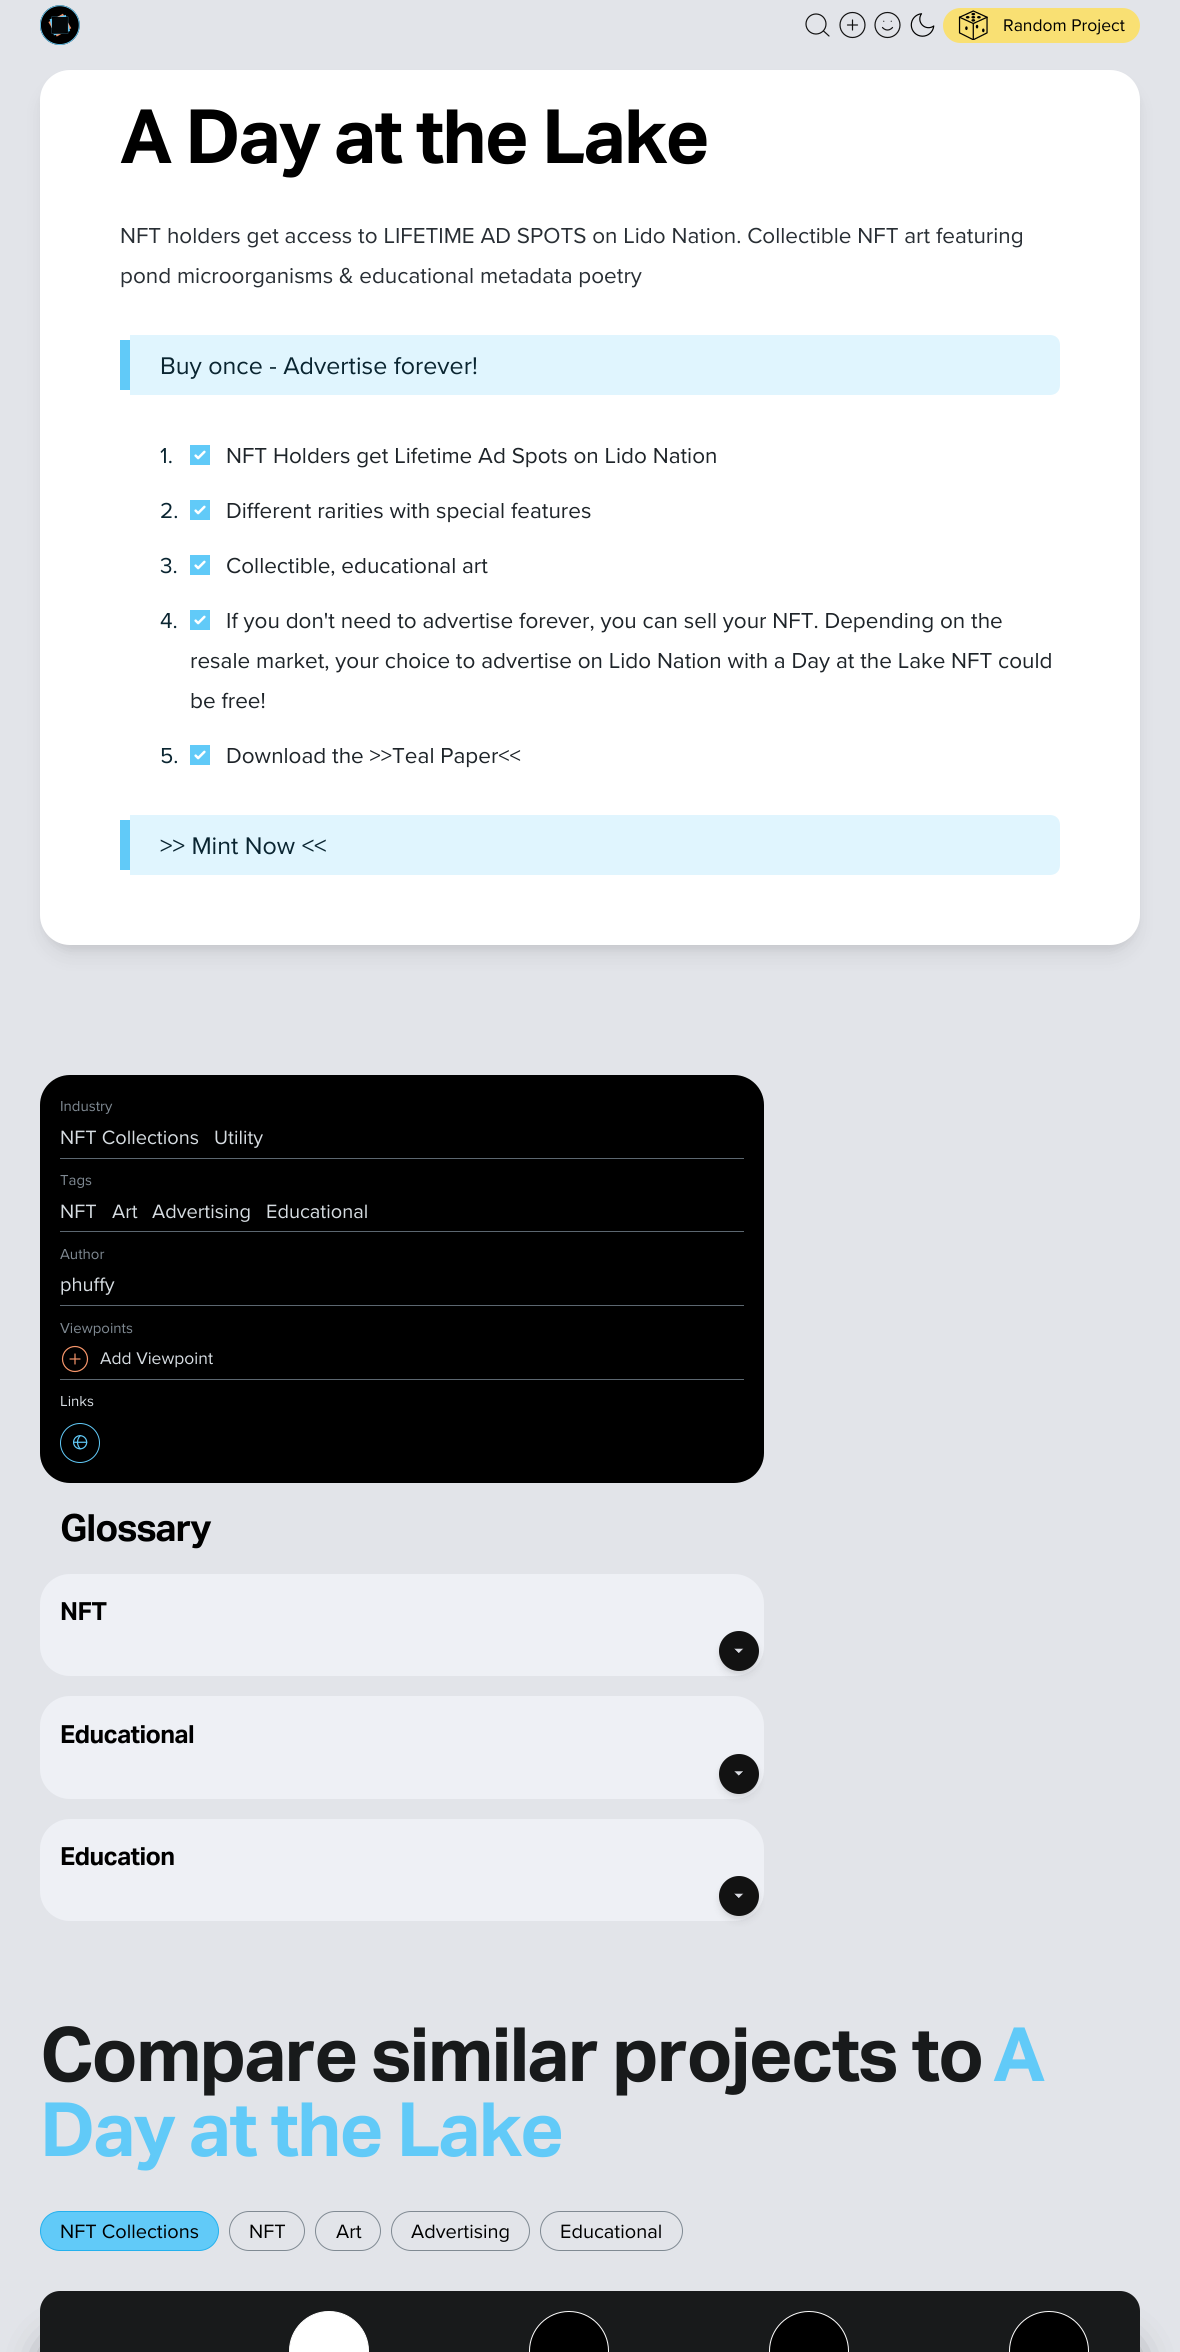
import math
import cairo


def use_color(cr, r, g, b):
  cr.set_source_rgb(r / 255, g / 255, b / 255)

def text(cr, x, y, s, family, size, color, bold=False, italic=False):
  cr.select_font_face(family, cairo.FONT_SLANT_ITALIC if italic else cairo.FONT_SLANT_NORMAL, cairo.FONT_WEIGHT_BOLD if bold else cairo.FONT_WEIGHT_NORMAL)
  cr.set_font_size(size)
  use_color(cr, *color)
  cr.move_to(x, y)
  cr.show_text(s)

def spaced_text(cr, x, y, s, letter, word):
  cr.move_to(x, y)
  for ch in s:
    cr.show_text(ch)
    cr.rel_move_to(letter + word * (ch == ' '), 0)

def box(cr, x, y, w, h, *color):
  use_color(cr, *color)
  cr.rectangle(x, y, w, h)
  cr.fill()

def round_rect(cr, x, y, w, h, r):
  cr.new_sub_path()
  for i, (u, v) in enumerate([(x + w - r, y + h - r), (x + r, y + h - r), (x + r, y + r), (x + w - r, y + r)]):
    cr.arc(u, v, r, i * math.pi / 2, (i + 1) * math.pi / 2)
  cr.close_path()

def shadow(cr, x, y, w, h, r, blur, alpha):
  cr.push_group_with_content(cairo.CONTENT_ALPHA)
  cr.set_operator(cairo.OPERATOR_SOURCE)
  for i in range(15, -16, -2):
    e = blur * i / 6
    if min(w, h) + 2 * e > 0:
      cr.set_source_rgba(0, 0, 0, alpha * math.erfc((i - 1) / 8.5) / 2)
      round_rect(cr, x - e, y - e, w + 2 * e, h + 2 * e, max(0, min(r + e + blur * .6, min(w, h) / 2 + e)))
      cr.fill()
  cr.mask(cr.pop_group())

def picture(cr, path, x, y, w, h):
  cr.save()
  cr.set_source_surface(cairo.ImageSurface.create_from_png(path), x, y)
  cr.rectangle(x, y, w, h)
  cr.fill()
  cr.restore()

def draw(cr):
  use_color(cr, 226, 228, 233)
  cr.paint()
  picture(cr, "img_01.png", 40, 5, 40, 40)
  cr.arc(816, 24, 10, 0, 2 * math.pi)
  use_color(cr, 18, 18, 18)
  cr.set_line_width(1.2)
  cr.stroke()
  cr.new_path()
  cr.move_to(829, 36)
  cr.line_to(823.5, 31)
  cr.set_line_cap(cairo.LINE_CAP_ROUND)
  cr.set_line_join(cairo.LINE_JOIN_ROUND)
  cr.stroke()
  cr.arc(852.5, 25, 12.5, 0, 2 * math.pi)
  cr.set_line_cap(cairo.LINE_CAP_BUTT)
  cr.set_line_join(cairo.LINE_JOIN_MITER)
  cr.stroke()
  cr.new_path()
  cr.move_to(852.5, 20)
  cr.line_to(852.5, 30)
  cr.move_to(847.5, 25)
  cr.line_to(857.5, 25)
  cr.set_line_cap(cairo.LINE_CAP_ROUND)
  cr.set_line_join(cairo.LINE_JOIN_ROUND)
  cr.stroke()
  picture(cr, "img_02.png", 874, 11, 27, 28)
  picture(cr, "img_03.png", 910, 13, 25, 24)
  use_color(cr, 249, 224, 115)
  round_rect(cr, 943, 8, 197, 35, 17.5)
  cr.fill()
  picture(cr, "img_04.png", 958, 10, 30, 30)
  use_color(cr, 18, 18, 18)
  shadow(cr, 43, 78, 1095, 870, 28, 4, 0.05)
  shadow(cr, 44, 86, 1092, 868, 26, 9.5, 0.1)
  use_color(cr, 255, 255, 255)
  round_rect(cr, 40, 70, 1100, 875, 30)
  cr.fill()
  use_color(cr, 224, 245, 254)
  cr.new_path()
  cr.move_to(130, 335)
  cr.line_to(1050, 335)
  cr.curve_to(1056, 335, 1060, 339, 1060, 345)
  cr.line_to(1060, 385)
  cr.curve_to(1060, 391, 1056, 395, 1050, 395)
  cr.line_to(130, 395)
  cr.close_path()
  cr.fill()
  box(cr, 120, 340, 10, 50, 97, 202, 248)
  box(cr, 190, 445, 20, 20, 97, 202, 248)
  picture(cr, "img_05.png", 194, 450, 12, 10)
  box(cr, 190, 500, 20, 20, 97, 202, 248)
  picture(cr, "img_05.png", 194, 505, 12, 10)
  box(cr, 190, 555, 20, 20, 97, 202, 248)
  picture(cr, "img_05.png", 194, 560, 12, 10)
  box(cr, 190, 610, 20, 20, 97, 202, 248)
  picture(cr, "img_05.png", 194, 615, 12, 10)
  box(cr, 190, 745, 20, 20, 97, 202, 248)
  picture(cr, "img_05.png", 194, 750, 12, 10)
  use_color(cr, 224, 245, 254)
  cr.new_path()
  cr.move_to(130, 815)
  cr.line_to(1050, 815)
  cr.curve_to(1056, 815, 1060, 819, 1060, 825)
  cr.line_to(1060, 865)
  cr.curve_to(1060, 871, 1056, 875, 1050, 875)
  cr.line_to(130, 875)
  cr.close_path()
  cr.fill()
  box(cr, 120, 820, 10, 50, 97, 202, 248)
  use_color(cr, 0, 0, 0)
  round_rect(cr, 40, 1075, 724, 408, 30)
  cr.fill()
  box(cr, 60, 1158, 684, 1, 92, 103, 112)
  box(cr, 60, 1231, 684, 1, 92, 103, 112)
  box(cr, 60, 1305, 684, 1, 92, 103, 112)
  box(cr, 60, 1379, 684, 1, 92, 103, 112)
  cr.arc(75, 1359, 12.5, 0, 2 * math.pi)
  use_color(cr, 248, 150, 107)
  cr.set_line_cap(cairo.LINE_CAP_BUTT)
  cr.set_line_join(cairo.LINE_JOIN_MITER)
  cr.stroke()
  cr.new_path()
  cr.move_to(75, 1354)
  cr.line_to(75, 1364)
  cr.move_to(70, 1359)
  cr.line_to(80, 1359)
  cr.set_line_cap(cairo.LINE_CAP_ROUND)
  cr.set_line_join(cairo.LINE_JOIN_ROUND)
  cr.stroke()
  cr.arc(80, 1443, 19.5, 0, 2 * math.pi)
  use_color(cr, 97, 202, 248)
  cr.set_line_width(1)
  cr.set_line_cap(cairo.LINE_CAP_BUTT)
  cr.set_line_join(cairo.LINE_JOIN_MITER)
  cr.stroke()
  picture(cr, "img_06.png", 73, 1435, 15, 15)
  use_color(cr, 238, 240, 245)
  round_rect(cr, 40, 1574, 724, 102, 30)
  cr.fill()
  use_color(cr, 18, 18, 18)
  shadow(cr, 720, 1635, 38, 38, 19, 2.5, 0.06)
  shadow(cr, 720, 1638, 38, 37, 18.5, 4, 0.1)
  use_color(cr, 18, 18, 18)
  cr.arc(739, 1651, 20, 0, 2 * math.pi)
  cr.fill()
  picture(cr, "img_07.png", 734, 1648, 10, 6)
  use_color(cr, 238, 240, 245)
  round_rect(cr, 40, 1696, 724, 103, 30)
  cr.fill()
  use_color(cr, 18, 18, 18)
  shadow(cr, 720, 1758, 38, 37, 18.5, 2.5, 0.06)
  shadow(cr, 720, 1760, 38, 38, 19, 4, 0.1)
  use_color(cr, 18, 18, 18)
  cr.arc(739, 1774, 20, 0, 2 * math.pi)
  cr.fill()
  picture(cr, "img_08.png", 733, 1771, 11, 5)
  use_color(cr, 238, 240, 245)
  round_rect(cr, 40, 1819, 724, 102, 30)
  cr.fill()
  use_color(cr, 18, 18, 18)
  shadow(cr, 720, 1880, 38, 38, 19, 2.5, 0.06)
  shadow(cr, 720, 1883, 38, 37, 18.5, 4, 0.1)
  use_color(cr, 18, 18, 18)
  cr.arc(739, 1896, 20, 0, 2 * math.pi)
  cr.fill()
  picture(cr, "img_07.png", 734, 1893, 10, 6)
  use_color(cr, 97, 202, 248)
  round_rect(cr, 40.5, 2211.5, 178, 39, 19.5)
  cr.fill_preserve()
  use_color(cr, 36, 177, 238)
  cr.stroke()
  round_rect(cr, 229.5, 2211.5, 75, 39, 19.5)
  use_color(cr, 128, 138, 147)
  cr.stroke()
  round_rect(cr, 315.5, 2211.5, 65, 39, 19.5)
  cr.stroke()
  round_rect(cr, 391.5, 2211.5, 138, 39, 19.5)
  cr.stroke()
  round_rect(cr, 540.5, 2211.5, 142, 39, 19.5)
  cr.stroke()
  use_color(cr, 18, 18, 18)
  shadow(cr, 59, 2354, 1062, 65, 1, 22, 0.9)
  use_color(cr, 24, 26, 27)
  cr.new_path()
  cr.move_to(60, 2291)
  cr.line_to(1120, 2291)
  cr.curve_to(1131, 2291, 1140, 2300, 1140, 2311)
  cr.line_to(1140, 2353)
  cr.line_to(40, 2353)
  cr.line_to(40, 2311)
  cr.curve_to(40, 2300, 49, 2291, 60, 2291)
  cr.close_path()
  cr.fill()
  use_color(cr, 255, 255, 255)
  cr.arc(329, 2351, 39.5, 0, 2 * math.pi)
  cr.fill_preserve()
  cr.stroke()
  use_color(cr, 0, 0, 0)
  cr.arc(569, 2351, 39.5, 0, 2 * math.pi)
  cr.fill_preserve()
  use_color(cr, 255, 255, 255)
  cr.stroke()
  use_color(cr, 0, 0, 0)
  cr.arc(809, 2351, 39.5, 0, 2 * math.pi)
  cr.fill_preserve()
  use_color(cr, 255, 255, 255)
  cr.stroke()
  use_color(cr, 0, 0, 0)
  cr.arc(1049, 2351, 39.5, 0, 2 * math.pi)
  cr.fill_preserve()
  use_color(cr, 255, 255, 255)
  cr.stroke()
  text(cr, 1003, 31, "Random Project", "Proxima Nova", 17.5, (0, 0, 0))
  cr.select_font_face("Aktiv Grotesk", cairo.FONT_SLANT_NORMAL, cairo.FONT_WEIGHT_BOLD)
  cr.set_font_size(75)
  spaced_text(cr, 120, 163, "A Day at the Lake", -1.9, 0)
  text(cr, 120, 243, "NFT holders get access to LIFETIME AD SPOTS on Lido Nation. Collectible NFT art featuring", "Proxima Nova", 22.5, (40, 46, 52))
  text(cr, 120, 283, "pond microorganisms & educational metadata poetry", "Proxima Nova", 22.5, (40, 46, 52))
  text(cr, 160, 374, "Buy once - Advertise forever!", "Proxima Nova", 25, (10, 37, 49))
  text(cr, 160, 463, "1.", "Proxima Nova", 22.5, (10, 37, 49))
  text(cr, 226, 463, "NFT Holders get Lifetime Ad Spots on Lido Nation", "Proxima Nova", 22.5, (30, 36, 41))
  text(cr, 160, 518, "2.", "Proxima Nova", 22.5, (10, 37, 49))
  text(cr, 226, 518, "Different rarities with special features", "Proxima Nova", 22.5, (30, 36, 41))
  text(cr, 160, 573, "3.", "Proxima Nova", 22.5, (10, 37, 49))
  text(cr, 226, 573, "Collectible, educational art", "Proxima Nova", 22.5, (30, 36, 41))
  text(cr, 160, 628, "4.", "Proxima Nova", 22.5, (10, 37, 49))
  text(cr, 226, 628, "If you don't need to advertise forever, you can sell your NFT. Depending on the", "Proxima Nova", 22.5, (30, 36, 41))
  text(cr, 190, 668, "resale market, your choice to advertise on Lido Nation with a Day at the Lake NFT could", "Proxima Nova", 22.5, (30, 36, 41))
  text(cr, 190, 708, "be free!", "Proxima Nova", 22.5, (30, 36, 41))
  text(cr, 160, 763, "5.", "Proxima Nova", 22.5, (10, 37, 49))
  text(cr, 226, 763, "Download the >>Teal Paper<<", "Proxima Nova", 22.5, (30, 36, 41))
  text(cr, 160, 854, ">> Mint Now <<", "Proxima Nova", 25, (10, 37, 49))
  text(cr, 60, 1111, "Industry", "Proxima Nova", 15, (128, 138, 147))
  text(cr, 60, 1144, "NFT Collections", "Proxima Nova", 20, (214, 220, 225))
  text(cr, 214, 1144, "Utility", "Proxima Nova", 20, (214, 220, 225))
  text(cr, 60, 1185, "Tags", "Proxima Nova", 15, (128, 138, 147))
  text(cr, 60, 1218, "NFT", "Proxima Nova", 20, (214, 220, 225))
  text(cr, 112, 1218, "Art", "Proxima Nova", 20, (214, 220, 225))
  text(cr, 152, 1218, "Advertising", "Proxima Nova", 20, (214, 220, 225))
  text(cr, 266, 1218, "Educational", "Proxima Nova", 20, (214, 220, 225))
  text(cr, 60, 1259, "Author", "Proxima Nova", 15, (128, 138, 147))
  text(cr, 60, 1291, "phuffy", "Proxima Nova", 20, (214, 220, 225))
  text(cr, 60, 1333, "Viewpoints", "Proxima Nova", 15, (128, 138, 147))
  text(cr, 100, 1364, "Add Viewpoint", "Proxima Nova", 17.5, (214, 220, 225))
  text(cr, 60, 1406, "Links", "Proxima Nova", 15, (214, 220, 225))
  cr.select_font_face("Aktiv Grotesk", cairo.FONT_SLANT_NORMAL, cairo.FONT_WEIGHT_BOLD)
  cr.set_font_size(37.5)
  use_color(cr, 0, 0, 0)
  spaced_text(cr, 60, 1541, "Glossary", -1, 0)
  cr.set_font_size(25)
  spaced_text(cr, 60, 1620, "NFT", -0.6, 0)
  spaced_text(cr, 60, 1743, "Educational", -0.6, 0)
  spaced_text(cr, 60, 1865, "Education", -0.6, 0)
  cr.set_font_size(75)
  use_color(cr, 24, 26, 27)
  spaced_text(cr, 40, 2081, "Compare similar projects to", -1.9, 0)
  use_color(cr, 97, 202, 248)
  spaced_text(cr, 993, 2081, "A", -1.9, 0)
  spaced_text(cr, 40, 2156, "Day at the Lake", -1.9, 0)
  text(cr, 60, 2238, "NFT Collections", "Proxima Nova", 20, (0, 0, 0))
  text(cr, 249, 2238, "NFT", "Proxima Nova", 20, (0, 0, 0))
  text(cr, 336, 2238, "Art", "Proxima Nova", 20, (0, 0, 0))
  text(cr, 411, 2238, "Advertising", "Proxima Nova", 20, (0, 0, 0))
  text(cr, 560, 2238, "Educational", "Proxima Nova", 20, (0, 0, 0))


surface = cairo.ImageSurface(cairo.FORMAT_RGB24, 1180, 2352)
cr = cairo.Context(surface)
options = cairo.FontOptions()
options.set_hint_metrics(cairo.HINT_METRICS_OFF)
options.set_hint_style(cairo.HINT_STYLE_NONE)
cr.set_font_options(options)
cr.set_miter_limit(4)
draw(cr)
surface.write_to_png("out.png")
